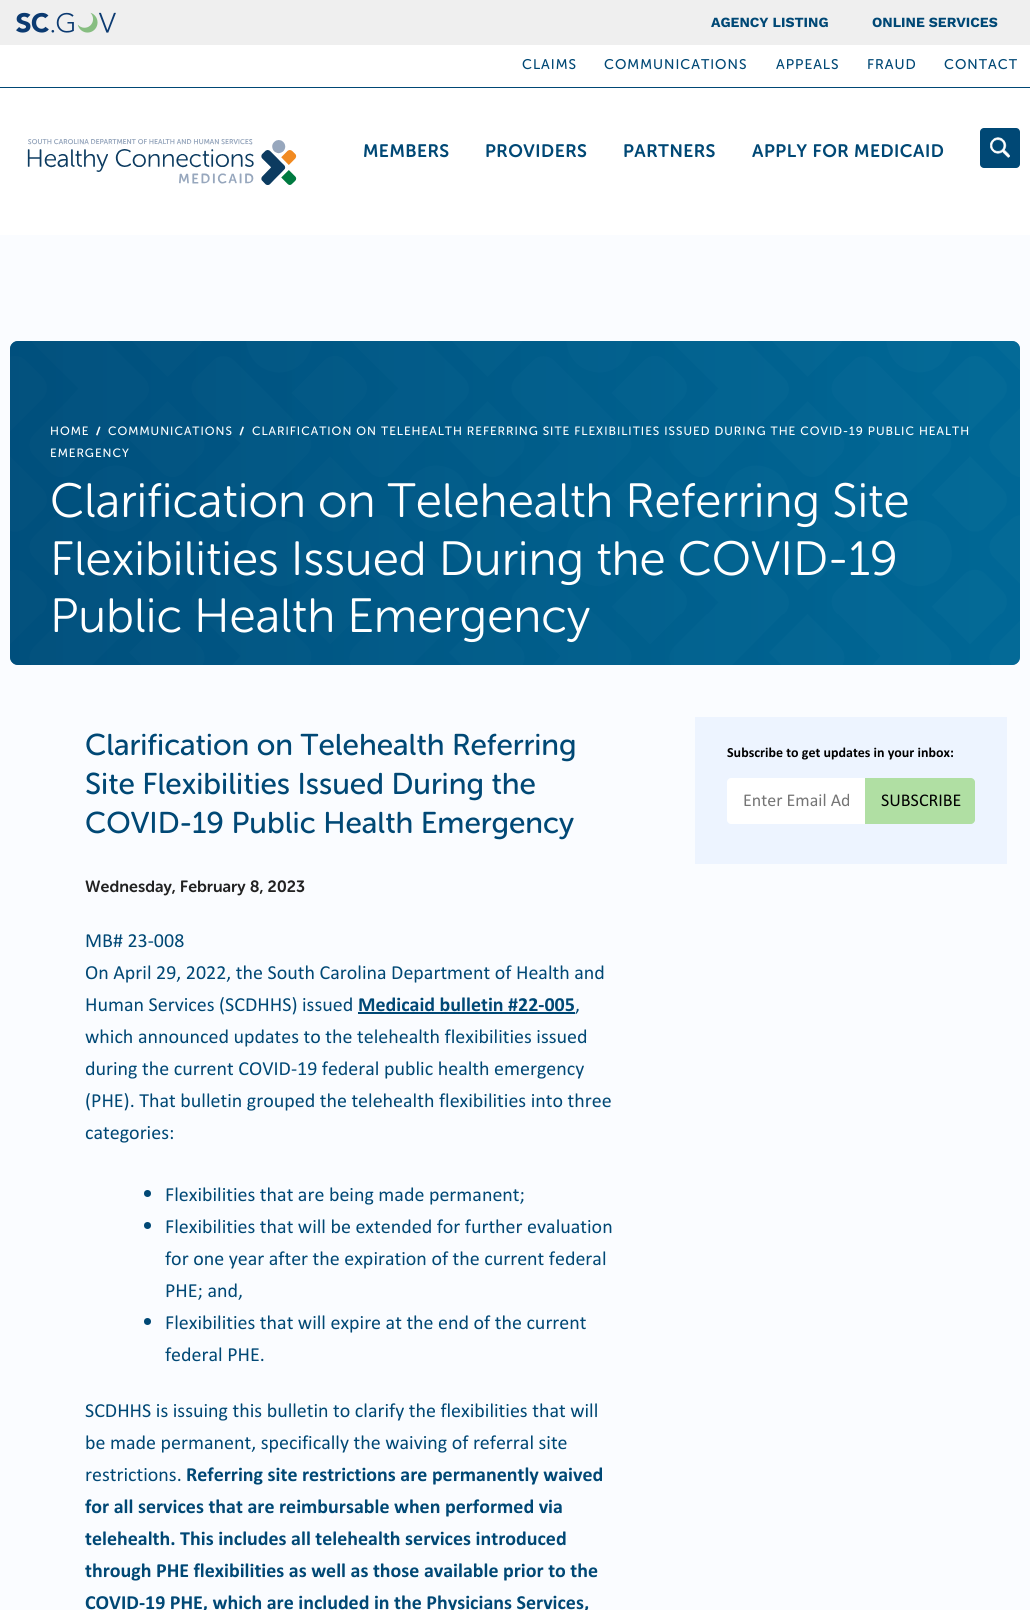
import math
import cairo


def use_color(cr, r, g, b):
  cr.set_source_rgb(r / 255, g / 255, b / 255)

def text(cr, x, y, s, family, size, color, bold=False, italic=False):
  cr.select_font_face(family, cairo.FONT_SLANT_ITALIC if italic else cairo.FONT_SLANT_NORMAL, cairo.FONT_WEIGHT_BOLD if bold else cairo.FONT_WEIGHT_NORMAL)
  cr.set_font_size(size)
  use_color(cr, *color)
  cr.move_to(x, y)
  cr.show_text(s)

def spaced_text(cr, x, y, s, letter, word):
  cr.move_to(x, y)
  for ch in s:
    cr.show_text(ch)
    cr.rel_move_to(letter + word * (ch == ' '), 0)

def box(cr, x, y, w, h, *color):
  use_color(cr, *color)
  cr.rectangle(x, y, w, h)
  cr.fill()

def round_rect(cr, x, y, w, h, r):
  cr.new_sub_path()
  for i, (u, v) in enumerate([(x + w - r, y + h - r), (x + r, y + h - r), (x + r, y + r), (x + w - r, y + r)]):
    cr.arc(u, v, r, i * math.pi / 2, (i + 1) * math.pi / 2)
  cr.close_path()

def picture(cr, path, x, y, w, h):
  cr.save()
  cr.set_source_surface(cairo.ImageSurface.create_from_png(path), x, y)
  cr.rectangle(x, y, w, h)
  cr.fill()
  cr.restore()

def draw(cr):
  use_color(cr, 250, 252, 255)
  cr.paint()
  box(cr, 0, 45, 1030, 190, 255, 255, 255)
  box(cr, 0, 87, 1030, 1, 0, 72, 117)
  box(cr, 0, 0, 1030, 45, 239, 239, 239)
  picture(cr, "img_01.png", 16, 12, 100, 21)
  picture(cr, "img_02.png", 27, 139, 270, 46)
  use_color(cr, 0, 72, 117)
  round_rect(cr, 980, 128, 40, 40, 4)
  cr.fill()
  picture(cr, "img_03.png", 990, 137, 20, 21)
  round_rect(cr, 10, 341, 1010, 324, 8)
  cr.fill()
  picture(cr, "img_04.png", 10, 341, 1010, 324)
  gradient = cairo.LinearGradient(-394, 503, 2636, 503)
  gradient.add_color_stop_rgba(0.05, 0, 0.282, 0.459, 0.7)
  gradient.add_color_stop_rgba(0.5, 0, 0.494, 0.678, 0.63)
  gradient.add_color_stop_rgba(0.95, 0, 0.282, 0.459, 0.7)
  cr.set_source(gradient)
  round_rect(cr, 10, 341, 1010, 324, 8)
  cr.fill()
  use_color(cr, 255, 255, 255)
  cr.new_path()
  cr.move_to(99, 426.5)
  cr.line_to(100.5, 427)
  cr.line_to(97.5, 435.5)
  cr.line_to(96, 435)
  cr.close_path()
  cr.fill()
  cr.new_path()
  cr.move_to(242.5, 426.5)
  cr.line_to(244, 427)
  cr.line_to(241, 435.5)
  cr.line_to(239.5, 435)
  cr.close_path()
  cr.fill()
  box(cr, 358, 1012, 217, 2, 0, 72, 117)
  cr.arc(147.5, 1193.5, 3.5, 0, 2 * math.pi)
  cr.fill()
  cr.arc(147.5, 1225.5, 3.5, 0, 2 * math.pi)
  cr.fill()
  cr.arc(147.5, 1321.5, 3.5, 0, 2 * math.pi)
  cr.fill()
  box(cr, 695, 717, 312, 147, 237, 244, 255)
  use_color(cr, 255, 255, 255)
  cr.new_path()
  cr.move_to(731, 778)
  cr.line_to(865, 778)
  cr.line_to(865, 824)
  cr.line_to(731, 824)
  cr.curve_to(729, 824, 727, 822, 727, 820)
  cr.line_to(727, 782)
  cr.curve_to(727, 780, 729, 778, 731, 778)
  cr.close_path()
  cr.fill()
  use_color(cr, 176, 223, 163)
  cr.new_path()
  cr.move_to(865, 778)
  cr.line_to(971, 778)
  cr.curve_to(973, 778, 975, 780, 975, 782)
  cr.line_to(975, 820)
  cr.curve_to(975, 822, 973, 824, 971, 824)
  cr.line_to(865, 824)
  cr.close_path()
  cr.fill()
  text(cr, 711, 27, "AGENCY LISTING", "Work Sans", 14, (0, 72, 117), bold=True)
  text(cr, 872, 27, "ONLINE SERVICES", "Work Sans", 14, (0, 72, 117), bold=True)
  cr.select_font_face("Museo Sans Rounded")
  spaced_text(cr, 522, 69, "CLAIMS", 1, 0)
  spaced_text(cr, 604, 69, "COMMUNICATIONS", 1, 0)
  spaced_text(cr, 776, 69, "APPEALS", 1, 0)
  spaced_text(cr, 867, 69, "FRAUD", 1, 0)
  spaced_text(cr, 944, 69, "CONTACT", 1, 0)
  cr.select_font_face("Museo Sans Rounded SemiBold")
  cr.set_font_size(18)
  spaced_text(cr, 363, 157, "MEMBERS", 0.5, 0)
  spaced_text(cr, 485, 157, "PROVIDERS", 0.5, 0)
  spaced_text(cr, 623, 157, "PARTNERS", 0.5, 0)
  spaced_text(cr, 752, 157, "APPLY FOR MEDICAID", 0.5, 0)
  cr.select_font_face("Museo Sans Rounded")
  cr.set_font_size(12)
  use_color(cr, 255, 255, 255)
  spaced_text(cr, 50, 435, "HOME", 1, 0)
  spaced_text(cr, 108, 435, "COMMUNICATIONS", 1, 0)
  spaced_text(cr, 252, 435, "CLARIFICATION ON TELEHEALTH REFERRING SITE FLEXIBILITIES ISSUED DURING THE COVID-19 PUBLIC HEALTH", 1, 0)
  spaced_text(cr, 50, 457, "EMERGENCY", 1, 0)
  text(cr, 50, 517, "Clarification on Telehealth Referring Site", "Museo Sans Rounded Light", 48, (255, 255, 255))
  text(cr, 50, 575, "Flexibilities Issued During the COVID-19", "Museo Sans Rounded Light", 48, (255, 255, 255))
  text(cr, 50, 632, "Public Health Emergency", "Museo Sans Rounded Light", 48, (255, 255, 255))
  text(cr, 85, 755, "Clarification on Telehealth Referring", "Museo Sans Rounded", 30, (0, 72, 117))
  text(cr, 85, 794, "Site Flexibilities Issued During the", "Museo Sans Rounded", 30, (0, 72, 117))
  text(cr, 85, 833, "COVID-19 Public Health Emergency", "Museo Sans Rounded", 30, (0, 72, 117))
  text(cr, 85, 892, "Wednesday, February 8, 2023", "Museo Sans Rounded SemiBold", 16.25, (34, 34, 34))
  text(cr, 85, 947, "MB# 23-008", "Calibri", 20, (0, 72, 117))
  text(cr, 85, 979, "On April 29, 2022, the South Carolina Department of Health and", "Calibri", 20, (0, 72, 117))
  text(cr, 85, 1011, "Human Services (SCDHHS) issued", "Calibri", 20, (0, 72, 117))
  text(cr, 358, 1011, "Medicaid bulletin #22-005", "Calibri", 20, (0, 72, 117), bold=True)
  text(cr, 575, 1011, ",", "Calibri", 20, (0, 72, 117))
  text(cr, 85, 1043, "which announced updates to the telehealth flexibilities issued", "Calibri", 20, (0, 72, 117))
  text(cr, 85, 1075, "during the current COVID-19 federal public health emergency", "Calibri", 20, (0, 72, 117))
  text(cr, 85, 1107, "(PHE). That bulletin grouped the telehealth flexibilities into three", "Calibri", 20, (0, 72, 117))
  text(cr, 85, 1139, "categories:", "Calibri", 20, (0, 72, 117))
  text(cr, 165, 1201, "Flexibilities that are being made permanent;", "Calibri", 20, (0, 72, 117))
  text(cr, 165, 1233, "Flexibilities that will be extended for further evaluation", "Calibri", 20, (0, 72, 117))
  text(cr, 165, 1265, "for one year after the expiration of the current federal", "Calibri", 20, (0, 72, 117))
  text(cr, 165, 1297, "PHE; and,", "Calibri", 20, (0, 72, 117))
  text(cr, 165, 1329, "Flexibilities that will expire at the end of the current", "Calibri", 20, (0, 72, 117))
  text(cr, 165, 1361, "federal PHE.", "Calibri", 20, (0, 72, 117))
  text(cr, 85, 1417, "SCDHHS is issuing this bulletin to clarify the flexibilities that will", "Calibri", 20, (0, 72, 117))
  text(cr, 85, 1449, "be made permanent, specifically the waiving of referral site", "Calibri", 20, (0, 72, 117))
  text(cr, 85, 1481, "restrictions.", "Calibri", 20, (0, 72, 117))
  text(cr, 186, 1481, "Referring site restrictions are permanently waived", "Calibri", 20, (0, 72, 117), bold=True)
  text(cr, 85, 1513, "for all services that are reimbursable when performed via", "Calibri", 20, (0, 72, 117), bold=True)
  text(cr, 85, 1545, "telehealth. This includes all telehealth services introduced", "Calibri", 20, (0, 72, 117), bold=True)
  text(cr, 85, 1577, "through PHE flexibilities as well as those available prior to the", "Calibri", 20, (0, 72, 117), bold=True)
  text(cr, 85, 1609, "COVID-19 PHE, which are included in the Physicians Services,", "Calibri", 20, (0, 72, 117), bold=True)
  text(cr, 727, 757, "Subscribe to get updates in your inbox:", "Calibri", 14, (0, 0, 0), bold=True)
  cr.save()
  cr.rectangle(743, 788, 106, 24)
  cr.clip()
  text(cr, 743, 806, "Enter Email Ad", "Calibri", 18, (117, 117, 117))
  cr.restore()
  text(cr, 881, 806, "SUBSCRIBE", "Calibri", 18, (0, 0, 0))


surface = cairo.ImageSurface(cairo.FORMAT_RGB24, 1030, 1610)
cr = cairo.Context(surface)
options = cairo.FontOptions()
options.set_hint_metrics(cairo.HINT_METRICS_OFF)
options.set_hint_style(cairo.HINT_STYLE_NONE)
cr.set_font_options(options)
cr.set_miter_limit(4)
draw(cr)
surface.write_to_png("out.png")
